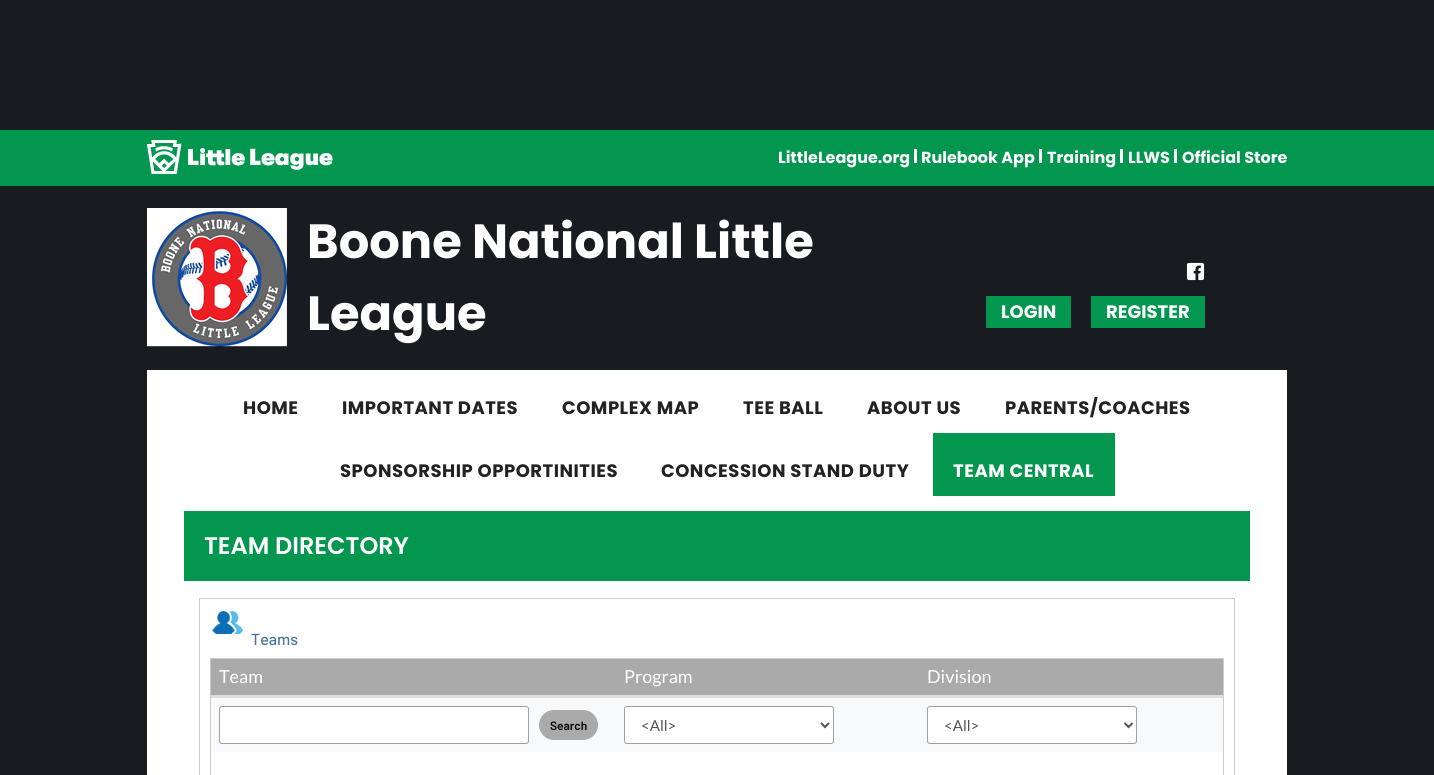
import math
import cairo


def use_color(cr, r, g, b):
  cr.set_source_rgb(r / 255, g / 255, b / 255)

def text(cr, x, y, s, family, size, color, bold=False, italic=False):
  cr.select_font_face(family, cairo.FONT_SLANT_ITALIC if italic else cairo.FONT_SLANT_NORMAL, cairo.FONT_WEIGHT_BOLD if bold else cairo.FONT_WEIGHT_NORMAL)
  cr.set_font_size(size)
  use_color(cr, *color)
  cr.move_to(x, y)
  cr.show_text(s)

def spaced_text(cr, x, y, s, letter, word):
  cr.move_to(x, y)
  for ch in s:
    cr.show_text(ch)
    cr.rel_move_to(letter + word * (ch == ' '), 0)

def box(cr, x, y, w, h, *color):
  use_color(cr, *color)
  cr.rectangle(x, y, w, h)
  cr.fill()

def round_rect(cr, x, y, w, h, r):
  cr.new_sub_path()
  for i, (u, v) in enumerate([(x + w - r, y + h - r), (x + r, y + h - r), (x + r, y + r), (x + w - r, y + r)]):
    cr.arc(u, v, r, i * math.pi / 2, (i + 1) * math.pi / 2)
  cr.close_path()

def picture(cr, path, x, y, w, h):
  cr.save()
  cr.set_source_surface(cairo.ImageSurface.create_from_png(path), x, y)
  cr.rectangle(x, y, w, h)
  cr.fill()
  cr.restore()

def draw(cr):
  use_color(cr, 24, 27, 31)
  cr.paint()
  box(cr, 0, 130, 1434, 56, 2, 150, 78)
  picture(cr, "img_01.png", 147, 140, 186, 34)
  box(cr, 914, 149, 3, 14, 255, 255, 255)
  box(cr, 1039, 149, 3, 14, 255, 255, 255)
  box(cr, 1120, 149, 3, 14, 255, 255, 255)
  box(cr, 1174, 149, 3, 14, 255, 255, 255)
  picture(cr, "img_02.png", 147, 208, 140, 139)
  picture(cr, "img_03.png", 1186, 262, 19, 19)
  box(cr, 986, 296, 85, 32, 2, 150, 78)
  box(cr, 1091, 296, 114, 32, 2, 150, 78)
  box(cr, 147, 370, 1140, 405, 255, 255, 255)
  box(cr, 933, 433, 182, 63, 2, 150, 78)
  box(cr, 184, 511, 1066, 70, 2, 150, 78)
  cr.rectangle(199.5, 598.5, 1035, 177)
  use_color(cr, 204, 204, 204)
  cr.set_line_width(1)
  cr.stroke()
  picture(cr, "img_04.png", 212, 611, 31, 23)
  cr.rectangle(210.5, 658.5, 1013, 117)
  cr.stroke()
  box(cr, 211, 659, 1012, 36, 170, 170, 170)
  box(cr, 211, 695, 1012, 2, 221, 221, 221)
  box(cr, 211, 698, 1012, 54, 248, 249, 250)
  box(cr, 211, 697, 1012, 1, 221, 221, 221)
  use_color(cr, 255, 255, 255)
  round_rect(cr, 219.5, 706.5, 309, 37, 2.5)
  cr.fill_preserve()
  use_color(cr, 160, 160, 160)
  cr.stroke()
  use_color(cr, 170, 170, 170)
  round_rect(cr, 539.5, 710.5, 58, 29, 14.5)
  cr.fill_preserve()
  cr.stroke()
  use_color(cr, 255, 255, 255)
  round_rect(cr, 624.5, 706.5, 209, 37, 2.5)
  cr.fill_preserve()
  use_color(cr, 160, 160, 160)
  cr.stroke()
  cr.new_path()
  cr.move_to(821, 723)
  cr.line_to(825, 727)
  cr.line_to(829, 723)
  use_color(cr, 82, 82, 82)
  cr.set_line_width(2)
  cr.stroke()
  use_color(cr, 255, 255, 255)
  round_rect(cr, 927.5, 706.5, 209, 37, 2.5)
  cr.fill_preserve()
  use_color(cr, 160, 160, 160)
  cr.set_line_width(1)
  cr.stroke()
  cr.new_path()
  cr.move_to(1124.5, 723)
  cr.line_to(1128.5, 727)
  cr.line_to(1132.5, 723)
  use_color(cr, 82, 82, 82)
  cr.set_line_width(2)
  cr.stroke()
  text(cr, 778, 163, "LittleLeague.org", "Poppins", 16, (255, 255, 255), bold=True)
  text(cr, 921, 163, "Rulebook App", "Poppins", 16, (255, 255, 255), bold=True)
  text(cr, 1047, 163, "Training", "Poppins", 16, (255, 255, 255), bold=True)
  text(cr, 1128, 163, "LLWS", "Poppins", 16, (255, 255, 255), bold=True)
  text(cr, 1182, 163, "Official Store", "Poppins", 16, (255, 255, 255), bold=True)
  text(cr, 307, 258, "Boone National Little", "Poppins", 48, (255, 255, 255), bold=True)
  text(cr, 307, 330, "League", "Poppins", 48, (255, 255, 255), bold=True)
  text(cr, 1001, 318, "LOGIN", "Poppins", 18, (255, 255, 255), bold=True)
  text(cr, 1106, 318, "REGISTER", "Poppins", 18, (255, 255, 255), bold=True)
  use_color(cr, 34, 34, 34)
  spaced_text(cr, 243, 414, "HOME", 0.5, 0)
  spaced_text(cr, 342, 414, "IMPORTANT DATES", 0.5, 0)
  spaced_text(cr, 562, 414, "COMPLEX MAP", 0.5, 0)
  spaced_text(cr, 743, 414, "TEE BALL", 0.5, 0)
  spaced_text(cr, 867, 414, "ABOUT US", 0.5, 0)
  spaced_text(cr, 1005, 414, "PARENTS/COACHES", 0.5, 0)
  spaced_text(cr, 340, 477, "SPONSORSHIP OPPORTINITIES", 0.5, 0)
  spaced_text(cr, 661, 477, "CONCESSION STAND DUTY", 0.5, 0)
  use_color(cr, 255, 255, 255)
  spaced_text(cr, 953, 477, "TEAM CENTRAL", 0.5, 0)
  text(cr, 204, 554, "TEAM DIRECTORY", "Poppins SemiBold", 24, (255, 255, 255))
  text(cr, 251, 645, "Teams", "Barlow Medium", 16, (72, 116, 155))
  text(cr, 219, 683, "Team", "Lato", 18, (255, 255, 255))
  text(cr, 624, 683, "Program", "Lato", 18, (255, 255, 255))
  text(cr, 927, 683, "Division", "Lato", 18, (255, 255, 255))
  text(cr, 550, 730, "Search", "Barlow SemiBold", 12, (0, 0, 0))
  text(cr, 641, 731, "<All>", "Lato", 15, (82, 82, 82))
  text(cr, 944, 731, "<All>", "Lato", 15, (82, 82, 82))


surface = cairo.ImageSurface(cairo.FORMAT_RGB24, 1434, 775)
cr = cairo.Context(surface)
options = cairo.FontOptions()
options.set_hint_metrics(cairo.HINT_METRICS_OFF)
options.set_hint_style(cairo.HINT_STYLE_NONE)
cr.set_font_options(options)
cr.set_miter_limit(4)
draw(cr)
surface.write_to_png("out.png")
